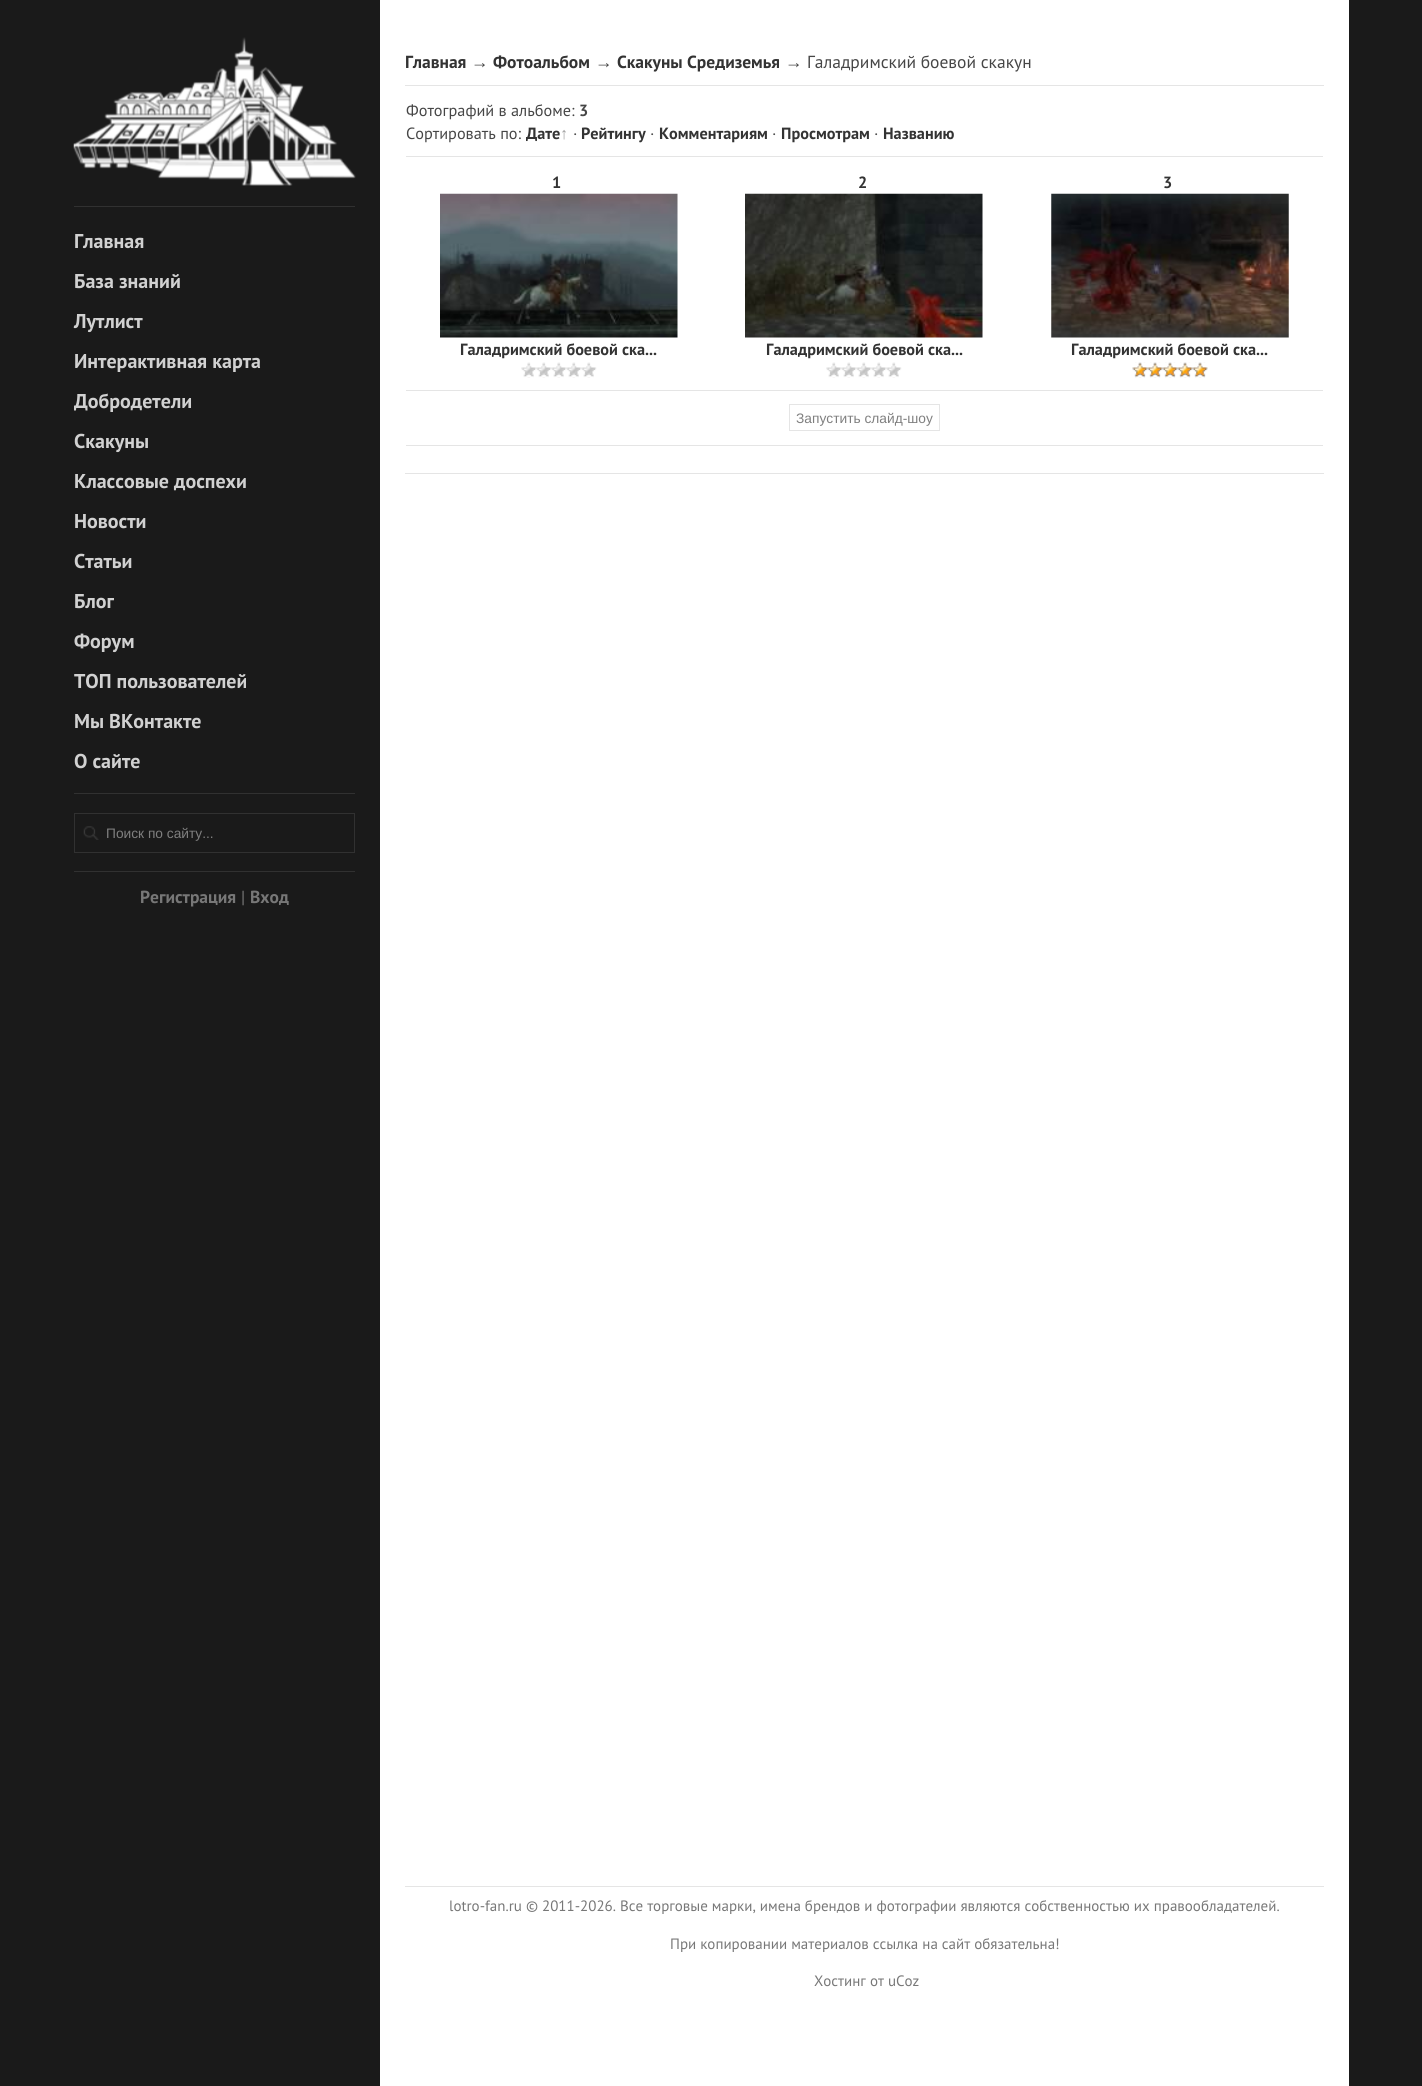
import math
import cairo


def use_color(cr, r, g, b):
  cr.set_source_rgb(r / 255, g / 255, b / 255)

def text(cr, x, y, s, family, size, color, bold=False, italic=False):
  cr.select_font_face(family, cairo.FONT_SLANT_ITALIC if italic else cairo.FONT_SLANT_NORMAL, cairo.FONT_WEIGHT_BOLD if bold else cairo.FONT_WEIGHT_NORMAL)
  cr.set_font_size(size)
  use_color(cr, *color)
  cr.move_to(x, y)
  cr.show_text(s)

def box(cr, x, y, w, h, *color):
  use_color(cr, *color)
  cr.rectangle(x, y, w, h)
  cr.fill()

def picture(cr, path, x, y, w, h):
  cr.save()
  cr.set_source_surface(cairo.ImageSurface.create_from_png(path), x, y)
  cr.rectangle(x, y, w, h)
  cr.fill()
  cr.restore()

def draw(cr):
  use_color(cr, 26, 26, 26)
  cr.paint()
  box(cr, 380, 0, 969, 2086, 255, 255, 255)
  picture(cr, "img_01.png", 73, 37, 283, 149)
  box(cr, 74, 206, 281, 1, 49, 49, 49)
  box(cr, 74, 793, 281, 1, 49, 49, 49)
  cr.rectangle(74.5, 813.5, 280, 39)
  cr.set_line_width(1)
  cr.stroke()
  picture(cr, "img_02.png", 83, 826, 16, 14)
  box(cr, 74, 871, 281, 1, 49, 49, 49)
  box(cr, 405, 85, 919, 1, 229, 229, 229)
  box(cr, 406, 156, 917, 1, 229, 229, 229)
  picture(cr, "img_03.png", 440, 193, 238, 145)
  picture(cr, "img_04.png", 521, 362, 76, 16)
  picture(cr, "img_05.png", 745, 193, 238, 145)
  picture(cr, "img_06.png", 826, 362, 76, 16)
  picture(cr, "img_07.png", 1051, 193, 238, 145)
  picture(cr, "img_08.png", 1132, 362, 76, 16)
  picture(cr, "img_09.png", 1132, 362, 76, 16)
  box(cr, 406, 390, 917, 1, 229, 229, 229)
  cr.rectangle(789.5, 404.5, 150, 26)
  cr.stroke()
  box(cr, 406, 445, 917, 1, 229, 229, 229)
  box(cr, 405, 473, 919, 1, 229, 229, 229)
  box(cr, 405, 1886, 919, 1, 229, 229, 229)
  text(cr, 74, 248, "Главная", "PT Sans", 20, (209, 209, 209), bold=True)
  text(cr, 74, 288, "База знаний", "PT Sans", 20, (209, 209, 209), bold=True)
  text(cr, 74, 328, "Лутлист", "PT Sans", 20, (209, 209, 209), bold=True)
  text(cr, 74, 368, "Интерактивная карта", "PT Sans", 20, (209, 209, 209), bold=True)
  text(cr, 74, 408, "Добродетели", "PT Sans", 20, (209, 209, 209), bold=True)
  text(cr, 74, 448, "Скакуны", "PT Sans", 20, (209, 209, 209), bold=True)
  text(cr, 74, 488, "Классовые доспехи", "PT Sans", 20, (209, 209, 209), bold=True)
  text(cr, 74, 528, "Новости", "PT Sans", 20, (209, 209, 209), bold=True)
  text(cr, 74, 568, "Статьи", "PT Sans", 20, (209, 209, 209), bold=True)
  text(cr, 74, 608, "Блог", "PT Sans", 20, (209, 209, 209), bold=True)
  text(cr, 74, 648, "Форум", "PT Sans", 20, (209, 209, 209), bold=True)
  text(cr, 74, 688, "ТОП пользователей", "PT Sans", 20, (209, 209, 209), bold=True)
  text(cr, 74, 728, "Мы ВКонтакте", "PT Sans", 20, (209, 209, 209), bold=True)
  text(cr, 74, 768, "О сайте", "PT Sans", 20, (209, 209, 209), bold=True)
  text(cr, 106, 838, "Поиск по сайту...", "Liberation Sans", 13.75, (127, 127, 127))
  text(cr, 140, 903, "Регистрация", "PT Sans", 17.5, (119, 119, 119), bold=True)
  text(cr, 241, 903, "|", "PT Sans", 17.5, (119, 119, 119))
  text(cr, 250, 903, "Вход", "PT Sans", 17.5, (119, 119, 119), bold=True)
  text(cr, 405, 68, "Главная", "PT Sans", 17.5, (51, 51, 51), bold=True)
  text(cr, 471, 68, "→", "Liberation Sans", 17.5, (70, 70, 70))
  text(cr, 493, 68, "Фотоальбом", "PT Sans", 17.5, (51, 51, 51), bold=True)
  text(cr, 595, 68, "→", "Liberation Sans", 17.5, (70, 70, 70))
  text(cr, 617, 68, "Скакуны Средиземья", "PT Sans", 17.5, (51, 51, 51), bold=True)
  text(cr, 785, 68, "→", "Liberation Sans", 17.5, (70, 70, 70))
  text(cr, 807, 68, "Галадримский боевой скакун", "PT Sans", 17.5, (70, 70, 70))
  text(cr, 406, 116, "Фотографий в альбоме:", "PT Sans", 16.25, (70, 70, 70))
  text(cr, 579, 116, "3", "PT Sans", 16.25, (70, 70, 70), bold=True)
  text(cr, 406, 139, "Сортировать по:", "PT Sans", 16.25, (70, 70, 70))
  text(cr, 526, 139, "Дате", "PT Sans", 16.25, (51, 51, 51), bold=True)
  text(cr, 560, 139, "↑", "Liberation Sans", 16.25, (160, 160, 160), bold=True)
  text(cr, 573, 139, "·", "PT Sans", 16.25, (70, 70, 70))
  text(cr, 581, 139, "Рейтингу", "PT Sans", 16.25, (51, 51, 51), bold=True)
  text(cr, 650, 139, "·", "PT Sans", 16.25, (70, 70, 70))
  text(cr, 659, 139, "Комментариям", "PT Sans", 16.25, (51, 51, 51), bold=True)
  text(cr, 772, 139, "·", "PT Sans", 16.25, (70, 70, 70))
  text(cr, 781, 139, "Просмотрам", "PT Sans", 16.25, (51, 51, 51), bold=True)
  text(cr, 874, 139, "·", "PT Sans", 16.25, (70, 70, 70))
  text(cr, 883, 139, "Названию", "PT Sans", 16.25, (51, 51, 51), bold=True)
  text(cr, 552, 188, "1", "PT Sans", 16.25, (51, 51, 51), bold=True)
  text(cr, 460, 355, "Галадримский боевой ска...", "PT Sans", 16.25, (51, 51, 51), bold=True)
  text(cr, 858, 188, "2", "PT Sans", 16.25, (51, 51, 51), bold=True)
  text(cr, 766, 355, "Галадримский боевой ска...", "PT Sans", 16.25, (51, 51, 51), bold=True)
  text(cr, 1163, 188, "3", "PT Sans", 16.25, (51, 51, 51), bold=True)
  text(cr, 1071, 355, "Галадримский боевой ска...", "PT Sans", 16.25, (51, 51, 51), bold=True)
  text(cr, 796, 423, "Запустить слайд-шоу", "Liberation Sans", 13.75, (127, 127, 127))
  text(cr, 449, 1911, "lotro-fan.ru © 2011-2026. Все торговые марки, имена брендов и фотографии являются собственностью их правообладателей.", "PT Sans", 15, (119, 119, 119))
  text(cr, 670, 1949, "При копировании материалов ссылка на сайт обязательна!", "PT Sans", 15, (119, 119, 119))
  text(cr, 814, 1986, "Хостинг от uCoz", "PT Sans", 15, (119, 119, 119))


surface = cairo.ImageSurface(cairo.FORMAT_RGB24, 1422, 2086)
cr = cairo.Context(surface)
options = cairo.FontOptions()
options.set_hint_metrics(cairo.HINT_METRICS_OFF)
options.set_hint_style(cairo.HINT_STYLE_NONE)
cr.set_font_options(options)
cr.set_miter_limit(4)
draw(cr)
surface.write_to_png("out.png")
